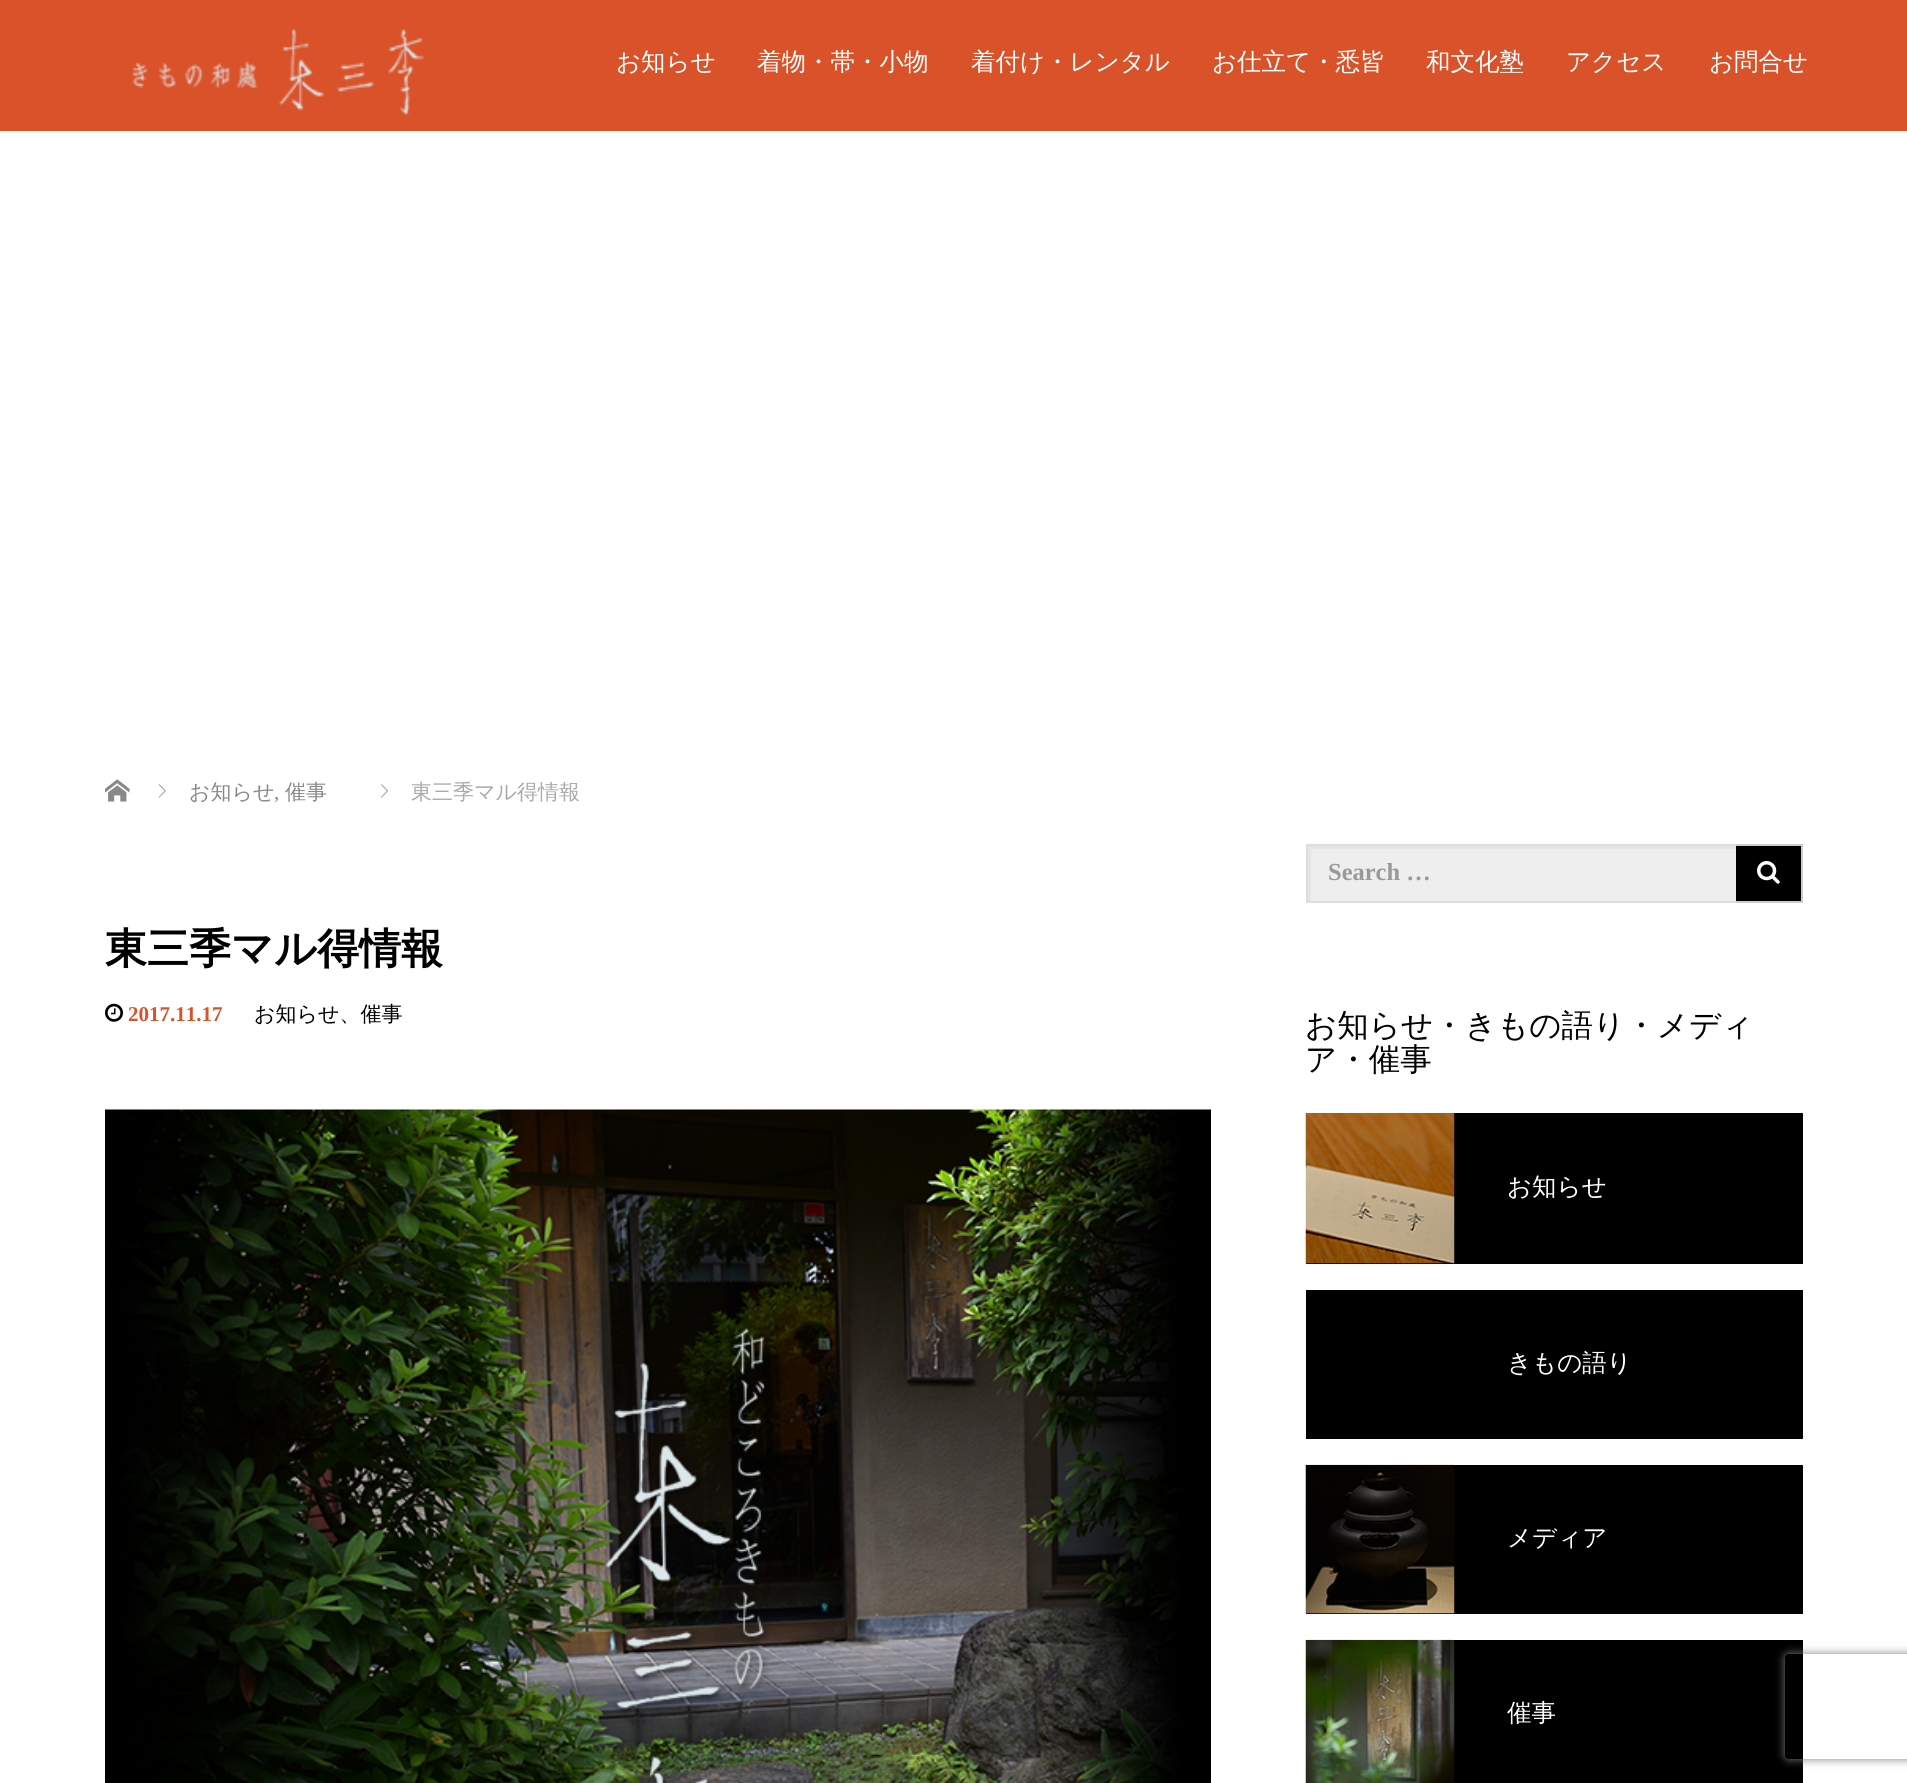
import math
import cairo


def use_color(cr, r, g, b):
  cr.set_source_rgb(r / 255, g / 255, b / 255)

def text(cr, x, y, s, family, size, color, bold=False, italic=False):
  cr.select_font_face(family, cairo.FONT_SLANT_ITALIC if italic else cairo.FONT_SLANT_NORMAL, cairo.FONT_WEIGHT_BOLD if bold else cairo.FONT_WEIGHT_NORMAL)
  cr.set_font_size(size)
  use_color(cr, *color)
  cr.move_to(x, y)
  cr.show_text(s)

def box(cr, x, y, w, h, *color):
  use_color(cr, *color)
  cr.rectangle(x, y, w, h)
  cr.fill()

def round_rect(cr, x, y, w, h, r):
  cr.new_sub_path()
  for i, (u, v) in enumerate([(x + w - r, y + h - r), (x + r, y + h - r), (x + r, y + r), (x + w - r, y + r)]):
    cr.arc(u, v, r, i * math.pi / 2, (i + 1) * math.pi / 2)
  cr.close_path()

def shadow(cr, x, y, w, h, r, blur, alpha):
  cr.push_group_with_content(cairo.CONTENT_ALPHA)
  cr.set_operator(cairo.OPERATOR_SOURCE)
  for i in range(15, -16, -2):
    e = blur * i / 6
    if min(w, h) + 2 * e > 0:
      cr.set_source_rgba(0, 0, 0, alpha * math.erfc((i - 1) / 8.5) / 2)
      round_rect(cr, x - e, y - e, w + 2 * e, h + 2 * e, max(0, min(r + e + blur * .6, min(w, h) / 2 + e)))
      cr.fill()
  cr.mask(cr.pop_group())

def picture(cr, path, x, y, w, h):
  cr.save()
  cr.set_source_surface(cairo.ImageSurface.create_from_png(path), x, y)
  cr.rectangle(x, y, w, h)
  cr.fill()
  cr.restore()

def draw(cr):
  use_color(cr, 255, 255, 255)
  cr.paint()
  box(cr, 0, 0, 1907, 131, 218, 82, 42)
  picture(cr, "img_01.png", 132, 29, 292, 86)
  picture(cr, "img_02.png", 105, 779, 25, 23)
  picture(cr, "img_03.png", 158, 784, 8, 14)
  picture(cr, "img_04.png", 381, 784, 7, 14)
  picture(cr, "img_05.png", 105, 1003, 18, 19)
  picture(cr, "img_06.png", 105, 1109, 1106, 674)
  box(cr, 1311, 849, 425, 52, 238, 238, 238)
  cr.save()
  cr.rectangle(1307, 845, 431, 56)
  cr.clip()
  use_color(cr, 229, 229, 229)
  cr.set_fill_rule(cairo.FILL_RULE_EVEN_ODD)
  cr.new_path()
  cr.move_to(1134, 672)
  cr.line_to(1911, 672)
  cr.line_to(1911, 1074)
  cr.line_to(1134, 1074)
  cr.close_path()
  cr.move_to(1311, 849)
  cr.line_to(1741, 849)
  cr.line_to(1741, 905)
  cr.line_to(1311, 905)
  cr.close_path()
  cr.fill()
  cr.restore()
  box(cr, 1306, 844, 432, 2, 221, 221, 221)
  box(cr, 1306, 901, 432, 2, 221, 221, 221)
  box(cr, 1306, 844, 2, 59, 221, 221, 221)
  box(cr, 1736, 846, 65, 55, 0, 0, 0)
  box(cr, 1736, 844, 67, 2, 204, 204, 204)
  box(cr, 1801, 844, 2, 59, 204, 204, 204)
  box(cr, 1736, 901, 67, 2, 204, 204, 204)
  picture(cr, "img_07.png", 1757, 861, 23, 23)
  box(cr, 1306, 1113, 497, 151, 0, 0, 0)
  picture(cr, "img_08.png", 1305, 1113, 150, 151)
  box(cr, 1306, 1290, 497, 149, 0, 0, 0)
  box(cr, 1306, 1465, 497, 149, 0, 0, 0)
  picture(cr, "img_09.png", 1305, 1464, 150, 150)
  box(cr, 1454, 1640, 349, 143, 0, 0, 0)
  picture(cr, "img_10.png", 1305, 1639, 150, 144)
  cr.save()
  cr.set_fill_rule(cairo.FILL_RULE_EVEN_ODD)
  cr.new_path()
  cr.move_to(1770, 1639)
  cr.line_to(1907, 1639)
  cr.line_to(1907, 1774)
  cr.line_to(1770, 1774)
  cr.close_path()
  cr.move_to(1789, 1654)
  cr.line_to(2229, 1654)
  cr.curve_to(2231, 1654, 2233, 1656, 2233, 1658)
  cr.line_to(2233, 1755)
  cr.curve_to(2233, 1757, 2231, 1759, 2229, 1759)
  cr.line_to(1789, 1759)
  cr.curve_to(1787, 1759, 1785, 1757, 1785, 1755)
  cr.line_to(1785, 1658)
  cr.curve_to(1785, 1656, 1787, 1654, 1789, 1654)
  cr.close_path()
  cr.clip()
  use_color(cr, 128, 128, 128)
  shadow(cr, 1785, 1654, 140, 105, 4, 4.5, 1)
  cr.restore()
  text(cr, 616, 70, "お知らせ", "WenQuanYi Zen Hei Medium", 24.5, (255, 255, 255))
  text(cr, 757, 70, "着物・帯・小物", "WenQuanYi Zen Hei Medium", 24.5, (255, 255, 255))
  text(cr, 971, 70, "着付け・レンタル", "WenQuanYi Zen Hei Medium", 24.5, (255, 255, 255))
  text(cr, 1212, 70, "お仕立て・悉皆", "WenQuanYi Zen Hei Medium", 24.5, (255, 255, 255))
  text(cr, 1426, 70, "和文化塾", "WenQuanYi Zen Hei Medium", 24.5, (255, 255, 255))
  text(cr, 1566, 70, "アクセス", "WenQuanYi Zen Hei Medium", 24.5, (255, 255, 255))
  text(cr, 1709, 70, "お問合せ", "WenQuanYi Zen Hei Medium", 24.5, (255, 255, 255))
  text(cr, 189, 799, "お知らせ", "WenQuanYi Zen Hei Medium", 21, (136, 136, 136))
  text(cr, 285, 799, "催事", "WenQuanYi Zen Hei Medium", 21, (136, 136, 136))
  text(cr, 274, 799, ",", "Liberation Serif", 21, (136, 136, 136))
  text(cr, 411, 799, "東三季マル得情報", "WenQuanYi Zen Hei Medium", 21, (170, 170, 170))
  text(cr, 105, 963, "東三季マル得情報", "WenQuanYi Zen Hei", 42, (0, 0, 0), bold=True)
  text(cr, 128, 1021, "2017.11.17", "Liberation Serif", 21, (218, 82, 42), bold=True)
  text(cr, 254, 1021, "お知らせ、催事", "WenQuanYi Zen Hei Medium", 21, (0, 0, 0))
  text(cr, 1328, 880, "Search …", "Liberation Serif", 24.5, (153, 153, 153), bold=True)
  text(cr, 1305, 1036, "お知らせ・きもの語り・メディ", "WenQuanYi Zen Hei Medium", 31.5, (0, 0, 0))
  text(cr, 1305, 1070, "ア・催事", "WenQuanYi Zen Hei Medium", 31.5, (0, 0, 0))
  text(cr, 1507, 1195, "お知らせ", "WenQuanYi Zen Hei Medium", 24.5, (255, 255, 255))
  text(cr, 1507, 1371, "きもの語り", "WenQuanYi Zen Hei Medium", 24.5, (255, 255, 255))
  text(cr, 1507, 1546, "メディア", "WenQuanYi Zen Hei Medium", 24.5, (255, 255, 255))
  text(cr, 1507, 1721, "催事", "WenQuanYi Zen Hei Medium", 24.5, (255, 255, 255))


surface = cairo.ImageSurface(cairo.FORMAT_RGB24, 1907, 1783)
cr = cairo.Context(surface)
options = cairo.FontOptions()
options.set_hint_metrics(cairo.HINT_METRICS_OFF)
options.set_hint_style(cairo.HINT_STYLE_NONE)
cr.set_font_options(options)
cr.set_miter_limit(4)
draw(cr)
surface.write_to_png("out.png")
